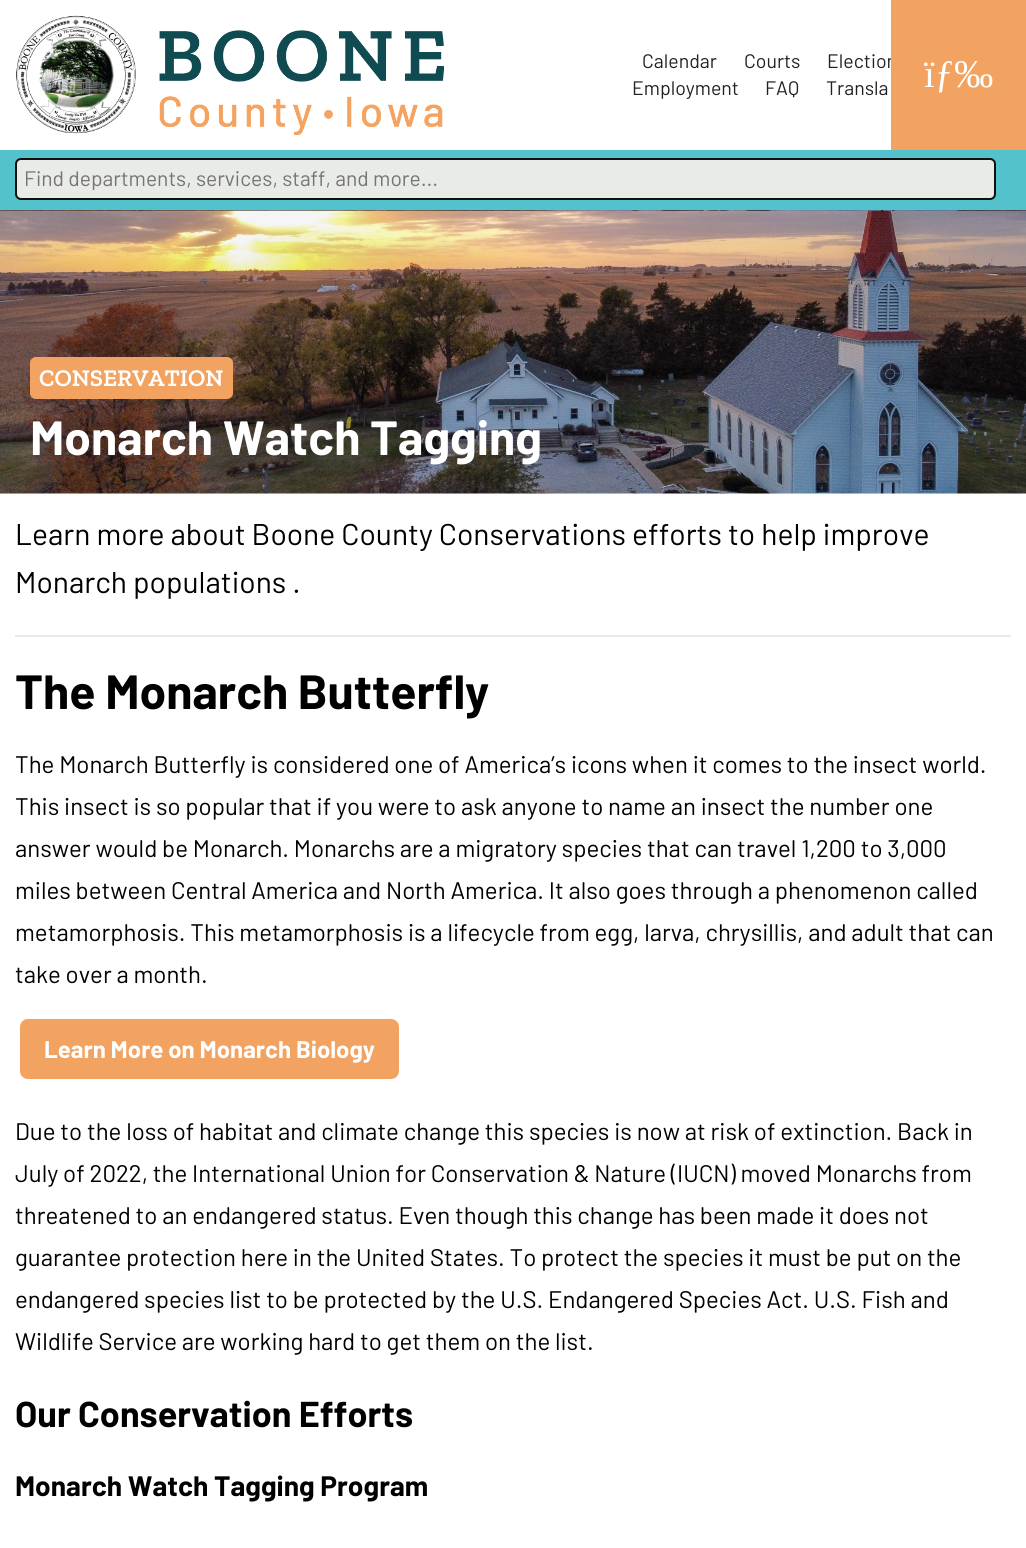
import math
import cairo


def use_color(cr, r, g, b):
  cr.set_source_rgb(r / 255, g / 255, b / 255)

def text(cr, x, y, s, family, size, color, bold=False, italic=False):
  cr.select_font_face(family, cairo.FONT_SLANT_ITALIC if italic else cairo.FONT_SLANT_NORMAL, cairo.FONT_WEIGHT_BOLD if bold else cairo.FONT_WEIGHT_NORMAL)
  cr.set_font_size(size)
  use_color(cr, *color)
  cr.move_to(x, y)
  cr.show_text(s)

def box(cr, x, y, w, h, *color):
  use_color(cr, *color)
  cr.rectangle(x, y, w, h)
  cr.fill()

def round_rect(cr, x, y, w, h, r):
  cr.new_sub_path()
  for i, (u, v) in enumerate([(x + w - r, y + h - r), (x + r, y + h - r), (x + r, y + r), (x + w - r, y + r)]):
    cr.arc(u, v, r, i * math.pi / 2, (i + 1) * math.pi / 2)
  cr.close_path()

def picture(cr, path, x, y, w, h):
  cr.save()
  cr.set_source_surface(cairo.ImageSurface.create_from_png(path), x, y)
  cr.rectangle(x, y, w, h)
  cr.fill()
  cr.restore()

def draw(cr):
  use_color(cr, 255, 255, 255)
  cr.paint()
  picture(cr, "img_01.png", 16, 15, 120, 119)
  picture(cr, "img_02.png", 159, 30, 285, 105)
  box(cr, 0, 150, 1026, 60, 83, 194, 204)
  use_color(cr, 233, 235, 230)
  round_rect(cr, 16, 159, 979, 40, 5)
  cr.fill_preserve()
  use_color(cr, 17, 17, 17)
  cr.stroke()
  picture(cr, "img_03.png", 0, 210, 1026, 284)
  use_color(cr, 243, 163, 97)
  round_rect(cr, 30, 357, 203, 42, 6)
  cr.fill()
  box(cr, 15, 635, 996, 2, 233, 235, 230)
  use_color(cr, 243, 163, 97)
  round_rect(cr, 20, 1019, 379, 60, 8)
  cr.fill()
  text(cr, 642, 68, "Calendar", "Barlow", 19.5, (34, 34, 34))
  text(cr, 744, 68, "Courts", "Barlow", 19.5, (34, 34, 34))
  text(cr, 827, 68, "Election", "Barlow", 19.5, (34, 34, 34))
  text(cr, 632, 95, "Employment", "Barlow", 19.5, (34, 34, 34))
  text(cr, 765, 95, "FAQ", "Barlow", 19.5, (34, 34, 34))
  text(cr, 826, 95, "Transla", "Barlow", 19.5, (34, 34, 34))
  box(cr, 891, 0, 135, 150, 243, 163, 97)
  text(cr, 924, 87, "ïƒ‰", "Liberation Serif", 39, (255, 255, 255))
  text(cr, 24, 186, "Find departments, services, staff, and more...", "Barlow", 21, (117, 117, 117))
  text(cr, 39, 386, "CONSERVATION", "Zilla Slab SemiBold", 24, (255, 255, 255))
  text(cr, 30, 455, "Monarch Watch Tagging", "Barlow", 48, (255, 255, 255), bold=True)
  text(cr, 15, 545, "Learn more about Boone County Conservations efforts to help improve", "Barlow", 30, (0, 0, 0))
  text(cr, 15, 593, "Monarch populations .", "Barlow", 30, (0, 0, 0))
  text(cr, 15, 709, "The Monarch Butterfly", "Barlow", 48, (0, 0, 0), bold=True)
  text(cr, 15, 773, "The Monarch Butterfly is considered one of America’s icons when it comes to the insect world.", "Barlow", 24, (0, 0, 0))
  text(cr, 15, 815, "This insect is so popular that if you were to ask anyone to name an insect the number one", "Barlow", 24, (0, 0, 0))
  text(cr, 15, 857, "answer would be Monarch. Monarchs are a migratory species that can travel 1,200 to 3,000", "Barlow", 24, (0, 0, 0))
  text(cr, 15, 899, "miles between Central America and North America. It also goes through a phenomenon called", "Barlow", 24, (0, 0, 0))
  text(cr, 15, 941, "metamorphosis. This metamorphosis is a lifecycle from egg, larva, chrysillis, and adult that can", "Barlow", 24, (0, 0, 0))
  text(cr, 15, 983, "take over a month.", "Barlow", 24, (0, 0, 0))
  text(cr, 44, 1058, "Learn More on Monarch Biology", "Barlow", 24, (255, 255, 255), bold=True)
  text(cr, 15, 1140, "Due to the loss of habitat and climate change this species is now at risk of extinction. Back in", "Barlow", 24, (0, 0, 0))
  text(cr, 15, 1182, "July of 2022, the International Union for Conservation & Nature (IUCN) moved Monarchs from", "Barlow", 24, (0, 0, 0))
  text(cr, 15, 1224, "threatened to an endangered status. Even though this change has been made it does not", "Barlow", 24, (0, 0, 0))
  text(cr, 15, 1266, "guarantee protection here in the United States. To protect the species it must be put on the", "Barlow", 24, (0, 0, 0))
  text(cr, 15, 1308, "endangered species list to be protected by the U.S. Endangered Species Act. U.S. Fish and", "Barlow", 24, (0, 0, 0))
  text(cr, 15, 1350, "Wildlife Service are working hard to get them on the list.", "Barlow", 24, (0, 0, 0))
  text(cr, 15, 1427, "Our Conservation Efforts", "Barlow", 36, (0, 0, 0), bold=True)
  text(cr, 15, 1496, "Monarch Watch Tagging Program", "Barlow", 28.1, (0, 0, 0), bold=True)


surface = cairo.ImageSurface(cairo.FORMAT_RGB24, 1026, 1548)
cr = cairo.Context(surface)
options = cairo.FontOptions()
options.set_hint_metrics(cairo.HINT_METRICS_OFF)
options.set_hint_style(cairo.HINT_STYLE_NONE)
cr.set_font_options(options)
cr.set_miter_limit(4)
draw(cr)
surface.write_to_png("out.png")
